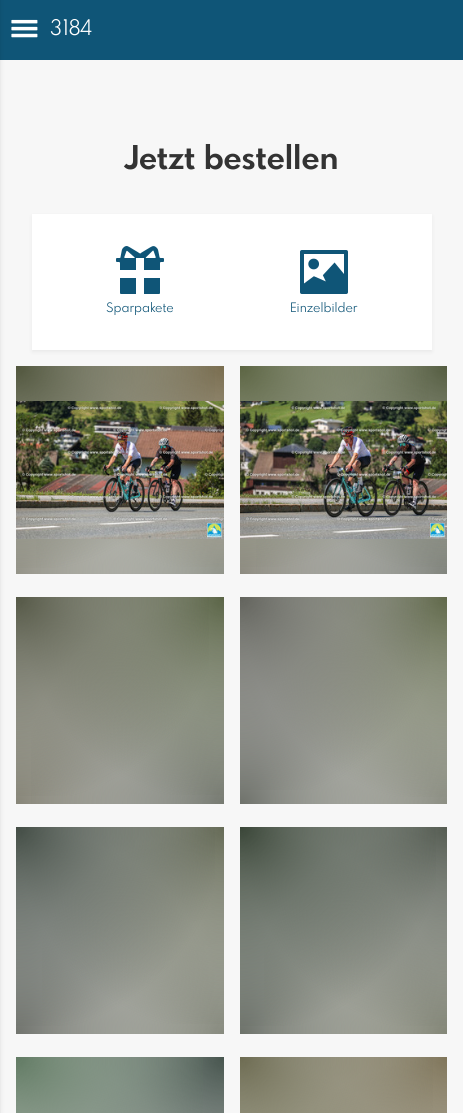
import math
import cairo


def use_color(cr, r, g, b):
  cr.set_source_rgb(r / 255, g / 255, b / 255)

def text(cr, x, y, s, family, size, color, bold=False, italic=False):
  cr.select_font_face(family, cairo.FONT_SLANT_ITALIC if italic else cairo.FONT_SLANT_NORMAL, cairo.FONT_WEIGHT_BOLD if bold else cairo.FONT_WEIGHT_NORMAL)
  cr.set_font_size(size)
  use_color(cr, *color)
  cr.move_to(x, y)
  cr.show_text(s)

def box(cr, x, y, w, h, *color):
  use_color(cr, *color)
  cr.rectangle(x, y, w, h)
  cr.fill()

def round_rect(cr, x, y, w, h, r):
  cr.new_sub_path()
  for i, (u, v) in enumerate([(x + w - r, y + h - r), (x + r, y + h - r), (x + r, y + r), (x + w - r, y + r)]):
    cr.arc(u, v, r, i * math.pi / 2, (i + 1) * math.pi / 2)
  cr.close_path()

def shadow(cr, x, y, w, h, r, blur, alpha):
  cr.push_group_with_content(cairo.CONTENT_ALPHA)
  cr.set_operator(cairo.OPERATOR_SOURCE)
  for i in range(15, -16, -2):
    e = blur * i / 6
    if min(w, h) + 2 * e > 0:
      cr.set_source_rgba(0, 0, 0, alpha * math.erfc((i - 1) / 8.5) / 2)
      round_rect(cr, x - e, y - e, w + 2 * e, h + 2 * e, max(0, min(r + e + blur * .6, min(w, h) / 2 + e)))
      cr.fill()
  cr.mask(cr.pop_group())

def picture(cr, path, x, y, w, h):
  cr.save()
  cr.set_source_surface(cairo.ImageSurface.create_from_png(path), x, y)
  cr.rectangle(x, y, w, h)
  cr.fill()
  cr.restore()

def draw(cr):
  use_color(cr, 15, 85, 119)
  cr.paint()
  box(cr, 0, 60, 463, 1053, 247, 247, 247)
  use_color(cr, 0, 0, 0)
  shadow(cr, -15, 0, 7, 1113, 0, 5, 1)
  picture(cr, "img_01.png", 11, 19, 27, 19)
  shadow(cr, 32, 216, 400, 136, 0, 2, 0.06)
  box(cr, 32, 214, 400, 136, 255, 255, 255)
  picture(cr, "img_02.png", 116, 246, 48, 48)
  picture(cr, "img_03.png", 300, 250, 48, 44)
  gradient = cairo.RadialGradient(16, 574, 0, 16, 574, 208)
  gradient.add_color_stop_rgba(0, 0.58, 0.576, 0.533, 1)
  gradient.add_color_stop_rgba(1, 0.969, 0.969, 0.969, 1)
  cr.set_source(gradient)
  cr.rectangle(16, 371, 203, 203)
  cr.fill()
  gradient = cairo.RadialGradient(224, 574, 0, 224, 574, 208)
  gradient.add_color_stop_rgba(0, 0.569, 0.58, 0.541, 1)
  gradient.add_color_stop_rgba(1, 0.569, 0.58, 0.541, 0)
  cr.set_source(gradient)
  cr.rectangle(36, 370, 188, 204)
  cr.fill()
  gradient = cairo.RadialGradient(224, 366, 0, 224, 366, 208)
  gradient.add_color_stop_rgba(0, 0.471, 0.424, 0.306, 1)
  gradient.add_color_stop_rgba(1, 0.471, 0.424, 0.306, 0)
  cr.set_source(gradient)
  cr.rectangle(20, 366, 204, 201)
  cr.fill()
  gradient = cairo.RadialGradient(16, 366, 0, 16, 366, 208)
  gradient.add_color_stop_rgba(0, 0.314, 0.333, 0.235, 1)
  gradient.add_color_stop_rgba(1, 0.314, 0.333, 0.235, 0)
  cr.set_source(gradient)
  cr.rectangle(16, 366, 199, 202)
  cr.fill()
  picture(cr, "img_04.png", 16, 401, 208, 138)
  gradient = cairo.RadialGradient(0, 0, 0, 0, 0, 1)
  gradient.set_matrix(cairo.Matrix(1 / 207, 0, 0, 1 / 208, -1 * 240 / 207, -1 * 574 / 208))
  gradient.add_color_stop_rgba(0, 0.553, 0.545, 0.502, 1)
  gradient.add_color_stop_rgba(1, 0.969, 0.969, 0.969, 1)
  cr.set_source(gradient)
  cr.rectangle(240, 370, 203, 204)
  cr.fill()
  gradient = cairo.RadialGradient(0, 0, 0, 0, 0, 1)
  gradient.set_matrix(cairo.Matrix(1 / 207, 0, 0, 1 / 208, -1 * 447 / 207, -1 * 574 / 208))
  gradient.add_color_stop_rgba(0, 0.506, 0.518, 0.49, 1)
  gradient.add_color_stop_rgba(1, 0.506, 0.518, 0.49, 0)
  cr.set_source(gradient)
  cr.rectangle(256, 370, 191, 204)
  cr.fill()
  gradient = cairo.RadialGradient(0, 0, 0, 0, 0, 1)
  gradient.set_matrix(cairo.Matrix(1 / 207, 0, 0, 1 / 208, -1 * 447 / 207, -1 * 366 / 208))
  gradient.add_color_stop_rgba(0, 0.329, 0.361, 0.251, 1)
  gradient.add_color_stop_rgba(1, 0.329, 0.361, 0.251, 0)
  cr.set_source(gradient)
  cr.rectangle(245, 366, 202, 201)
  cr.fill()
  gradient = cairo.RadialGradient(0, 0, 0, 0, 0, 1)
  gradient.set_matrix(cairo.Matrix(1 / 207, 0, 0, 1 / 208, -1 * 240 / 207, -1 * 366 / 208))
  gradient.add_color_stop_rgba(0, 0.357, 0.392, 0.259, 1)
  gradient.add_color_stop_rgba(1, 0.357, 0.392, 0.259, 0)
  cr.set_source(gradient)
  cr.rectangle(240, 366, 189, 201)
  cr.fill()
  picture(cr, "img_05.png", 240, 401, 207, 138)
  gradient = cairo.RadialGradient(0, 0, 0, 0, 0, 1)
  gradient.set_matrix(cairo.Matrix(1 / 208, 0, 0, 1 / 207, -1 * 16 / 208, -1 * 804 / 207))
  gradient.add_color_stop_rgba(0, 0.529, 0.522, 0.471, 1)
  gradient.add_color_stop_rgba(1, 0.969, 0.969, 0.969, 1)
  cr.set_source(gradient)
  cr.rectangle(16, 601, 204, 203)
  cr.fill()
  gradient = cairo.RadialGradient(0, 0, 0, 0, 0, 1)
  gradient.set_matrix(cairo.Matrix(1 / 208, 0, 0, 1 / 207, -1 * 224 / 208, -1 * 804 / 207))
  gradient.add_color_stop_rgba(0, 0.463, 0.478, 0.443, 1)
  gradient.add_color_stop_rgba(1, 0.463, 0.478, 0.443, 0)
  cr.set_source(gradient)
  cr.rectangle(31, 602, 193, 202)
  cr.fill()
  gradient = cairo.RadialGradient(0, 0, 0, 0, 0, 1)
  gradient.set_matrix(cairo.Matrix(1 / 208, 0, 0, 1 / 207, -1 * 224 / 208, -1 * 597 / 207))
  gradient.add_color_stop_rgba(0, 0.353, 0.392, 0.275, 1)
  gradient.add_color_stop_rgba(1, 0.353, 0.392, 0.275, 0)
  cr.set_source(gradient)
  cr.rectangle(20, 597, 204, 198)
  cr.fill()
  gradient = cairo.RadialGradient(0, 0, 0, 0, 0, 1)
  gradient.set_matrix(cairo.Matrix(1 / 208, 0, 0, 1 / 207, -1 * 16 / 208, -1 * 597 / 207))
  gradient.add_color_stop_rgba(0, 0.329, 0.341, 0.271, 1)
  gradient.add_color_stop_rgba(1, 0.329, 0.341, 0.271, 0)
  cr.set_source(gradient)
  cr.rectangle(16, 597, 193, 199)
  cr.fill()
  gradient = cairo.RadialGradient(240, 804, 0, 240, 804, 207)
  gradient.add_color_stop_rgba(0, 0.435, 0.447, 0.42, 1)
  gradient.add_color_stop_rgba(1, 0.969, 0.969, 0.969, 1)
  cr.set_source(gradient)
  cr.rectangle(240, 601, 203, 203)
  cr.fill()
  gradient = cairo.RadialGradient(447, 804, 0, 447, 804, 207)
  gradient.add_color_stop_rgba(0, 0.549, 0.557, 0.514, 1)
  gradient.add_color_stop_rgba(1, 0.549, 0.557, 0.514, 0)
  cr.set_source(gradient)
  cr.rectangle(270, 602, 177, 202)
  cr.fill()
  gradient = cairo.RadialGradient(447, 597, 0, 447, 597, 207)
  gradient.add_color_stop_rgba(0, 0.376, 0.408, 0.29, 1)
  gradient.add_color_stop_rgba(1, 0.376, 0.408, 0.29, 0)
  cr.set_source(gradient)
  cr.rectangle(245, 597, 202, 200)
  cr.fill()
  gradient = cairo.RadialGradient(240, 597, 0, 240, 597, 207)
  gradient.add_color_stop_rgba(0, 0.384, 0.388, 0.361, 1)
  gradient.add_color_stop_rgba(1, 0.384, 0.388, 0.361, 0)
  cr.set_source(gradient)
  cr.rectangle(240, 597, 190, 193)
  cr.fill()
  gradient = cairo.RadialGradient(0, 0, 0, 0, 0, 1)
  gradient.set_matrix(cairo.Matrix(1 / 208, 0, 0, 1 / 207, -1 * 16 / 208, -1 * 1034 / 207))
  gradient.add_color_stop_rgba(0, 0.443, 0.455, 0.431, 1)
  gradient.add_color_stop_rgba(1, 0.969, 0.969, 0.969, 1)
  cr.set_source(gradient)
  cr.rectangle(16, 831, 204, 203)
  cr.fill()
  gradient = cairo.RadialGradient(0, 0, 0, 0, 0, 1)
  gradient.set_matrix(cairo.Matrix(1 / 208, 0, 0, 1 / 207, -1 * 224 / 208, -1 * 1034 / 207))
  gradient.add_color_stop_rgba(0, 0.529, 0.541, 0.494, 1)
  gradient.add_color_stop_rgba(1, 0.529, 0.541, 0.494, 0)
  cr.set_source(gradient)
  cr.rectangle(42, 832, 182, 202)
  cr.fill()
  gradient = cairo.RadialGradient(0, 0, 0, 0, 0, 1)
  gradient.set_matrix(cairo.Matrix(1 / 208, 0, 0, 1 / 207, -1 * 224 / 208, -1 * 827 / 207))
  gradient.add_color_stop_rgba(0, 0.396, 0.416, 0.337, 1)
  gradient.add_color_stop_rgba(1, 0.396, 0.416, 0.337, 0)
  cr.set_source(gradient)
  cr.rectangle(20, 827, 204, 197)
  cr.fill()
  gradient = cairo.RadialGradient(0, 0, 0, 0, 0, 1)
  gradient.set_matrix(cairo.Matrix(1 / 208, 0, 0, 1 / 207, -1 * 16 / 208, -1 * 827 / 207))
  gradient.add_color_stop_rgba(0, 0.259, 0.298, 0.267, 1)
  gradient.add_color_stop_rgba(1, 0.259, 0.298, 0.267, 0)
  cr.set_source(gradient)
  cr.rectangle(16, 827, 199, 199)
  cr.fill()
  gradient = cairo.RadialGradient(240, 1034, 0, 240, 1034, 207)
  gradient.add_color_stop_rgba(0, 0.427, 0.447, 0.416, 1)
  gradient.add_color_stop_rgba(1, 0.969, 0.969, 0.969, 1)
  cr.set_source(gradient)
  cr.rectangle(240, 831, 203, 203)
  cr.fill()
  gradient = cairo.RadialGradient(447, 1034, 0, 447, 1034, 207)
  gradient.add_color_stop_rgba(0, 0.514, 0.525, 0.467, 1)
  gradient.add_color_stop_rgba(1, 0.514, 0.525, 0.467, 0)
  cr.set_source(gradient)
  cr.rectangle(264, 832, 183, 202)
  cr.fill()
  gradient = cairo.RadialGradient(447, 827, 0, 447, 827, 207)
  gradient.add_color_stop_rgba(0, 0.329, 0.357, 0.318, 1)
  gradient.add_color_stop_rgba(1, 0.329, 0.357, 0.318, 0)
  cr.set_source(gradient)
  cr.rectangle(245, 827, 202, 199)
  cr.fill()
  gradient = cairo.RadialGradient(240, 827, 0, 240, 827, 207)
  gradient.add_color_stop_rgba(0, 0.224, 0.271, 0.216, 1)
  gradient.add_color_stop_rgba(1, 0.224, 0.271, 0.216, 0)
  cr.set_source(gradient)
  cr.rectangle(240, 827, 196, 199)
  cr.fill()
  gradient = cairo.RadialGradient(16, 1265, 0, 16, 1265, 208)
  gradient.add_color_stop_rgba(0, 0.62, 0.612, 0.62, 1)
  gradient.add_color_stop_rgba(1, 0.969, 0.969, 0.969, 1)
  cr.set_source(gradient)
  cr.rectangle(16, 1063, 133, 50)
  cr.fill()
  gradient = cairo.RadialGradient(224, 1265, 0, 224, 1265, 208)
  gradient.add_color_stop_rgba(0, 0.675, 0.686, 0.678, 1)
  gradient.add_color_stop_rgba(1, 0.675, 0.686, 0.678, 0)
  cr.set_source(gradient)
  cr.rectangle(95, 1062, 129, 51)
  cr.fill()
  gradient = cairo.RadialGradient(224, 1057, 0, 224, 1057, 208)
  gradient.add_color_stop_rgba(0, 0.278, 0.333, 0.306, 1)
  gradient.add_color_stop_rgba(1, 0.278, 0.333, 0.306, 0)
  cr.set_source(gradient)
  cr.rectangle(20, 1057, 204, 56)
  cr.fill()
  gradient = cairo.RadialGradient(16, 1057, 0, 16, 1057, 208)
  gradient.add_color_stop_rgba(0, 0.38, 0.478, 0.388, 1)
  gradient.add_color_stop_rgba(1, 0.38, 0.478, 0.388, 0)
  cr.set_source(gradient)
  cr.rectangle(16, 1057, 187, 56)
  cr.fill()
  gradient = cairo.RadialGradient(0, 0, 0, 0, 0, 1)
  gradient.set_matrix(cairo.Matrix(1 / 207, 0, 0, 1 / 208, -1 * 240 / 207, -1 * 1265 / 208))
  gradient.add_color_stop_rgba(0, 0.565, 0.576, 0.427, 1)
  gradient.add_color_stop_rgba(1, 0.969, 0.969, 0.969, 1)
  cr.set_source(gradient)
  cr.rectangle(240, 1061, 135, 52)
  cr.fill()
  gradient = cairo.RadialGradient(0, 0, 0, 0, 0, 1)
  gradient.set_matrix(cairo.Matrix(1 / 207, 0, 0, 1 / 208, -1 * 447 / 207, -1 * 1265 / 208))
  gradient.add_color_stop_rgba(0, 0.518, 0.51, 0.42, 1)
  gradient.add_color_stop_rgba(1, 0.518, 0.51, 0.42, 0)
  cr.set_source(gradient)
  cr.rectangle(313, 1061, 134, 52)
  cr.fill()
  gradient = cairo.RadialGradient(0, 0, 0, 0, 0, 1)
  gradient.set_matrix(cairo.Matrix(1 / 207, 0, 0, 1 / 208, -1 * 447 / 207, -1 * 1057 / 208))
  gradient.add_color_stop_rgba(0, 0.498, 0.459, 0.353, 1)
  gradient.add_color_stop_rgba(1, 0.498, 0.459, 0.353, 0)
  cr.set_source(gradient)
  cr.rectangle(245, 1057, 202, 56)
  cr.fill()
  gradient = cairo.RadialGradient(0, 0, 0, 0, 0, 1)
  gradient.set_matrix(cairo.Matrix(1 / 207, 0, 0, 1 / 208, -1 * 240 / 207, -1 * 1057 / 208))
  gradient.add_color_stop_rgba(0, 0.427, 0.42, 0.318, 1)
  gradient.add_color_stop_rgba(1, 0.427, 0.42, 0.318, 0)
  cr.set_source(gradient)
  cr.rectangle(240, 1057, 193, 56)
  cr.fill()
  text(cr, 50, 35, "3184", "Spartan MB", 21, (255, 255, 255))
  text(cr, 125, 169, "Jetzt bestellen", "Spartan MB", 32, (51, 51, 51), bold=True)
  text(cr, 106, 312, "Sparpakete", "Spartan MB", 12.75, (15, 85, 119))
  text(cr, 290, 312, "Einzelbilder", "Spartan MB", 12.75, (15, 85, 119))


surface = cairo.ImageSurface(cairo.FORMAT_RGB24, 463, 1113)
cr = cairo.Context(surface)
options = cairo.FontOptions()
options.set_hint_metrics(cairo.HINT_METRICS_OFF)
options.set_hint_style(cairo.HINT_STYLE_NONE)
cr.set_font_options(options)
cr.set_miter_limit(4)
draw(cr)
surface.write_to_png("out.png")
